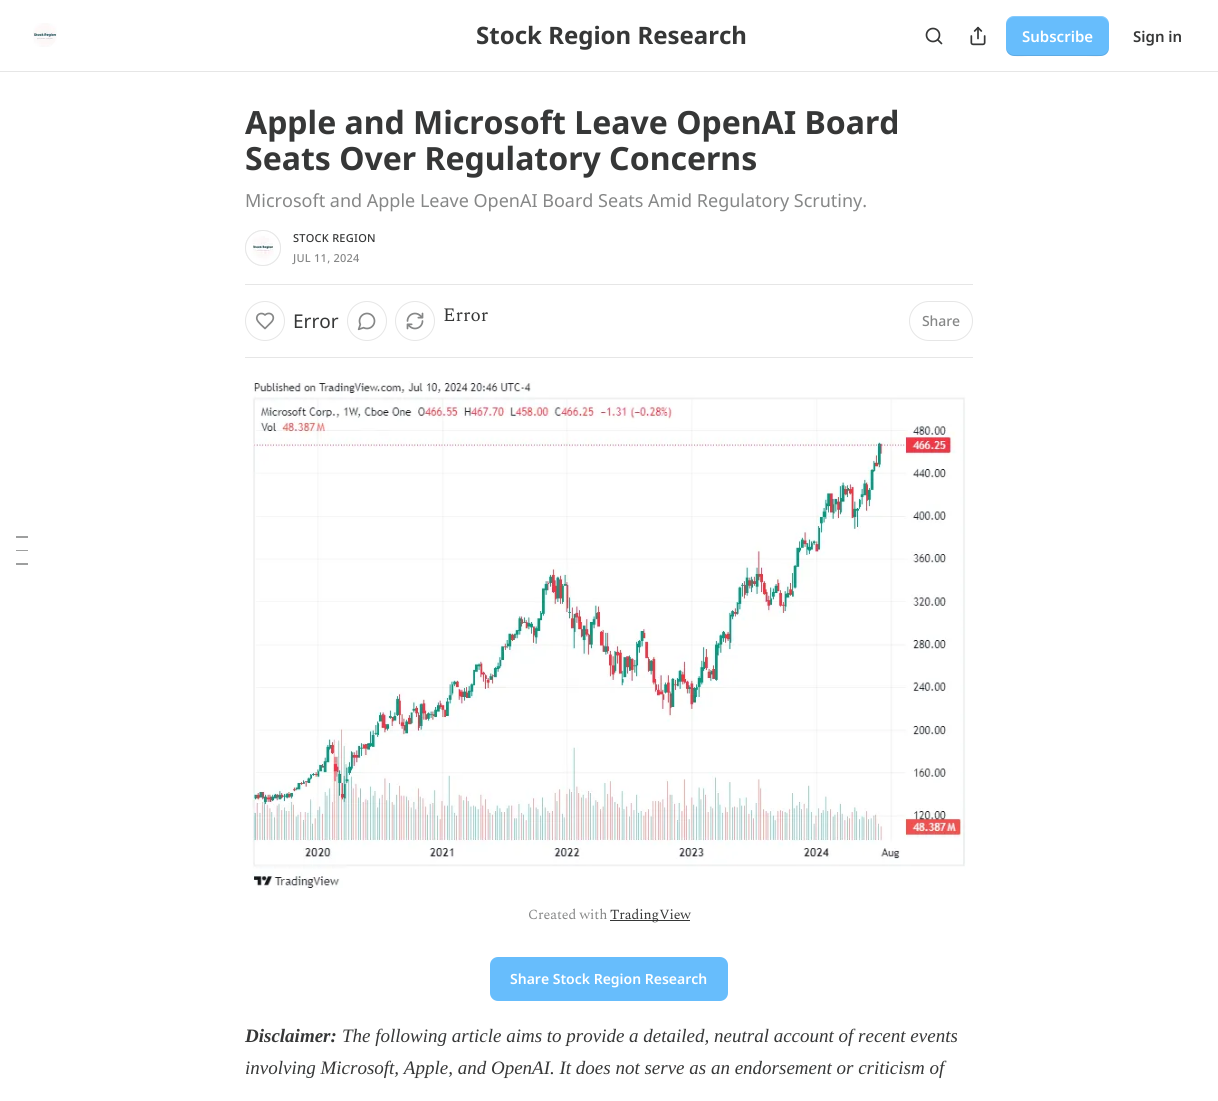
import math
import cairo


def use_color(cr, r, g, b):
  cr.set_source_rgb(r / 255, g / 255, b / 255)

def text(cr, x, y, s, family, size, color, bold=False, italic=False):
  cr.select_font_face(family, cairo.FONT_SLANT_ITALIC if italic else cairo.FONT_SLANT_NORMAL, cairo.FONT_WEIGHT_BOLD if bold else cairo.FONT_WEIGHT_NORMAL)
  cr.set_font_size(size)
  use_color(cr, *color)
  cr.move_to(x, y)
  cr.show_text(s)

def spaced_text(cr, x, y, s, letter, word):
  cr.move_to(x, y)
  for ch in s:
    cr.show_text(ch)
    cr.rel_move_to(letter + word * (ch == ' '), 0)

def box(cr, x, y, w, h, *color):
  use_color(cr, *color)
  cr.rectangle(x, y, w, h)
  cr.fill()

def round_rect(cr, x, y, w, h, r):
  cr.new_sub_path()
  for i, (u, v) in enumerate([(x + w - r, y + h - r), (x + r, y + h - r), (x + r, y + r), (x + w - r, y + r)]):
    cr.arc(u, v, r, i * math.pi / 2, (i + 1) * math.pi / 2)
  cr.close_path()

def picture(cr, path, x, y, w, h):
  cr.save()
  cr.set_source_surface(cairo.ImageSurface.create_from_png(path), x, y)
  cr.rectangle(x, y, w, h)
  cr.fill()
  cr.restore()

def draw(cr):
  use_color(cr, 255, 255, 255)
  cr.paint()
  box(cr, 0, 71, 1218, 1, 230, 230, 230)
  picture(cr, "img_01.png", 33, 23, 24, 24)
  cr.arc(933, 35, 6.5, 0, 2 * math.pi)
  use_color(cr, 54, 55, 55)
  cr.set_line_width(1.7)
  cr.stroke()
  cr.new_path()
  cr.move_to(941.5, 43.5)
  cr.line_to(938, 40)
  cr.set_line_cap(cairo.LINE_CAP_ROUND)
  cr.set_line_join(cairo.LINE_JOIN_ROUND)
  cr.stroke()
  picture(cr, "img_02.png", 970, 26, 16, 20)
  use_color(cr, 103, 189, 252)
  round_rect(cr, 1006, 16, 103, 40, 8)
  cr.fill()
  cr.set_source_rgba(0, 0, 0, 0.1)
  cr.new_path()
  cr.move_to(1006, 47)
  cr.curve_to(1006, 59, 1020, 56, 1028, 56)
  cr.line_to(1086, 56)
  cr.curve_to(1095, 56, 1109, 59, 1109, 47)
  cr.curve_to(1109, 51, 1105, 55, 1101, 55)
  cr.line_to(1014, 55)
  cr.curve_to(1010, 55, 1006, 51, 1006, 47)
  cr.close_path()
  cr.fill()
  cr.set_source_rgba(1, 1, 1, 0.2)
  cr.new_path()
  cr.move_to(1014, 17)
  cr.line_to(1101, 17)
  cr.curve_to(1105, 17, 1109, 21, 1109, 25)
  cr.curve_to(1109, 13, 1095, 16, 1086, 16)
  cr.line_to(1028, 16)
  cr.curve_to(1020, 16, 1006, 13, 1006, 25)
  cr.curve_to(1006, 21, 1010, 17, 1014, 17)
  cr.close_path()
  cr.fill()
  cr.arc(263, 248, 17.5, 0, 2 * math.pi)
  use_color(cr, 230, 230, 230)
  cr.set_line_width(1)
  cr.set_line_cap(cairo.LINE_CAP_BUTT)
  cr.set_line_join(cairo.LINE_JOIN_MITER)
  cr.stroke()
  picture(cr, "img_03.png", 245, 230, 36, 36)
  cr.arc(263, 248, 17.5, 0, 2 * math.pi)
  cr.stroke()
  box(cr, 245, 284, 728, 1, 230, 230, 230)
  box(cr, 245, 357, 728, 1, 230, 230, 230)
  cr.arc(265, 321, 19.5, 0, 2 * math.pi)
  cr.stroke()
  cr.new_path()
  cr.move_to(271, 322.5)
  cr.curve_to(277, 316.5, 270, 310.5, 265, 315)
  cr.curve_to(261.5, 311.5, 255.5, 314.5, 257, 319.5)
  cr.curve_to(258, 322.5, 263, 326.5, 265, 328.5)
  cr.close_path()
  use_color(cr, 134, 135, 135)
  cr.set_line_width(1.7)
  cr.set_line_cap(cairo.LINE_CAP_ROUND)
  cr.set_line_join(cairo.LINE_JOIN_ROUND)
  cr.stroke()
  cr.arc(367, 321, 19.5, 0, 2 * math.pi)
  use_color(cr, 230, 230, 230)
  cr.set_line_width(1)
  cr.set_line_cap(cairo.LINE_CAP_BUTT)
  cr.set_line_join(cairo.LINE_JOIN_MITER)
  cr.stroke()
  picture(cr, "img_04.png", 357, 312, 19, 19)
  cr.arc(415, 321, 19.5, 0, 2 * math.pi)
  cr.stroke()
  picture(cr, "img_05.png", 406, 312, 18, 18)
  round_rect(cr, 909.5, 301.5, 63, 39, 19.5)
  cr.stroke()
  box(cr, 16, 536, 12, 2, 158, 159, 159)
  box(cr, 16, 550, 12, 1, 158, 159, 159)
  box(cr, 16, 563, 12, 2, 158, 159, 159)
  picture(cr, "img_06.png", 252, 381, 714, 507)
  box(cr, 610, 920, 80, 1, 54, 55, 55)
  use_color(cr, 103, 189, 252)
  round_rect(cr, 490, 957, 238, 44, 8)
  cr.fill()
  text(cr, 476, 44, "Stock Region Research", "Noto Sans", 24, (54, 55, 55), bold=True)
  text(cr, 1022, 42, "Subscribe", "Noto Sans SemiBold", 15, (255, 255, 255))
  text(cr, 1133, 42, "Sign in", "Noto Sans SemiBold", 15, (54, 55, 55))
  text(cr, 245, 134, "Apple and Microsoft Leave OpenAI Board", "Noto Sans", 32, (54, 55, 55), bold=True)
  text(cr, 245, 170, "Seats Over Regulatory Concerns", "Noto Sans", 32, (54, 55, 55), bold=True)
  text(cr, 245, 207, "Microsoft and Apple Leave OpenAI Board Seats Amid Regulatory Scrutiny.", "Noto Sans", 18, (134, 135, 135))
  cr.select_font_face("Noto Sans Medium")
  cr.set_font_size(11)
  use_color(cr, 54, 55, 55)
  spaced_text(cr, 293, 242, "STOCK REGION", 0.25, 0)
  use_color(cr, 134, 135, 135)
  spaced_text(cr, 293, 262, "JUL 11, 2024", 0.25, 0)
  text(cr, 293, 328, "Error", "Noto Sans", 19, (54, 55, 55))
  text(cr, 443, 321, "Error", "Spectral", 19, (54, 55, 55))
  cr.select_font_face("Noto Sans Medium")
  cr.set_font_size(14)
  use_color(cr, 134, 135, 135)
  spaced_text(cr, 922, 326, "Share", -0.1, 0)
  cr.select_font_face("Spectral")
  spaced_text(cr, 528, 919, "Created with", -0.1, 0)
  use_color(cr, 54, 55, 55)
  spaced_text(cr, 610, 919, "TradingView", -0.1, 0)
  text(cr, 510, 984, "Share Stock Region Research", "Noto Sans SemiBold", 14, (255, 255, 255))
  text(cr, 245, 1042, "Disclaimer:", "Liberation Serif", 19, (54, 55, 55), bold=True, italic=True)
  text(cr, 342, 1042, "The following article aims to provide a detailed, neutral account of recent events", "Liberation Serif", 19, (54, 55, 55), italic=True)
  text(cr, 245, 1074, "involving Microsoft, Apple, and OpenAI. It does not serve as an endorsement or criticism of", "Liberation Serif", 19, (54, 55, 55), italic=True)


surface = cairo.ImageSurface(cairo.FORMAT_RGB24, 1218, 1101)
cr = cairo.Context(surface)
options = cairo.FontOptions()
options.set_hint_metrics(cairo.HINT_METRICS_OFF)
options.set_hint_style(cairo.HINT_STYLE_NONE)
cr.set_font_options(options)
cr.set_miter_limit(4)
draw(cr)
surface.write_to_png("out.png")
